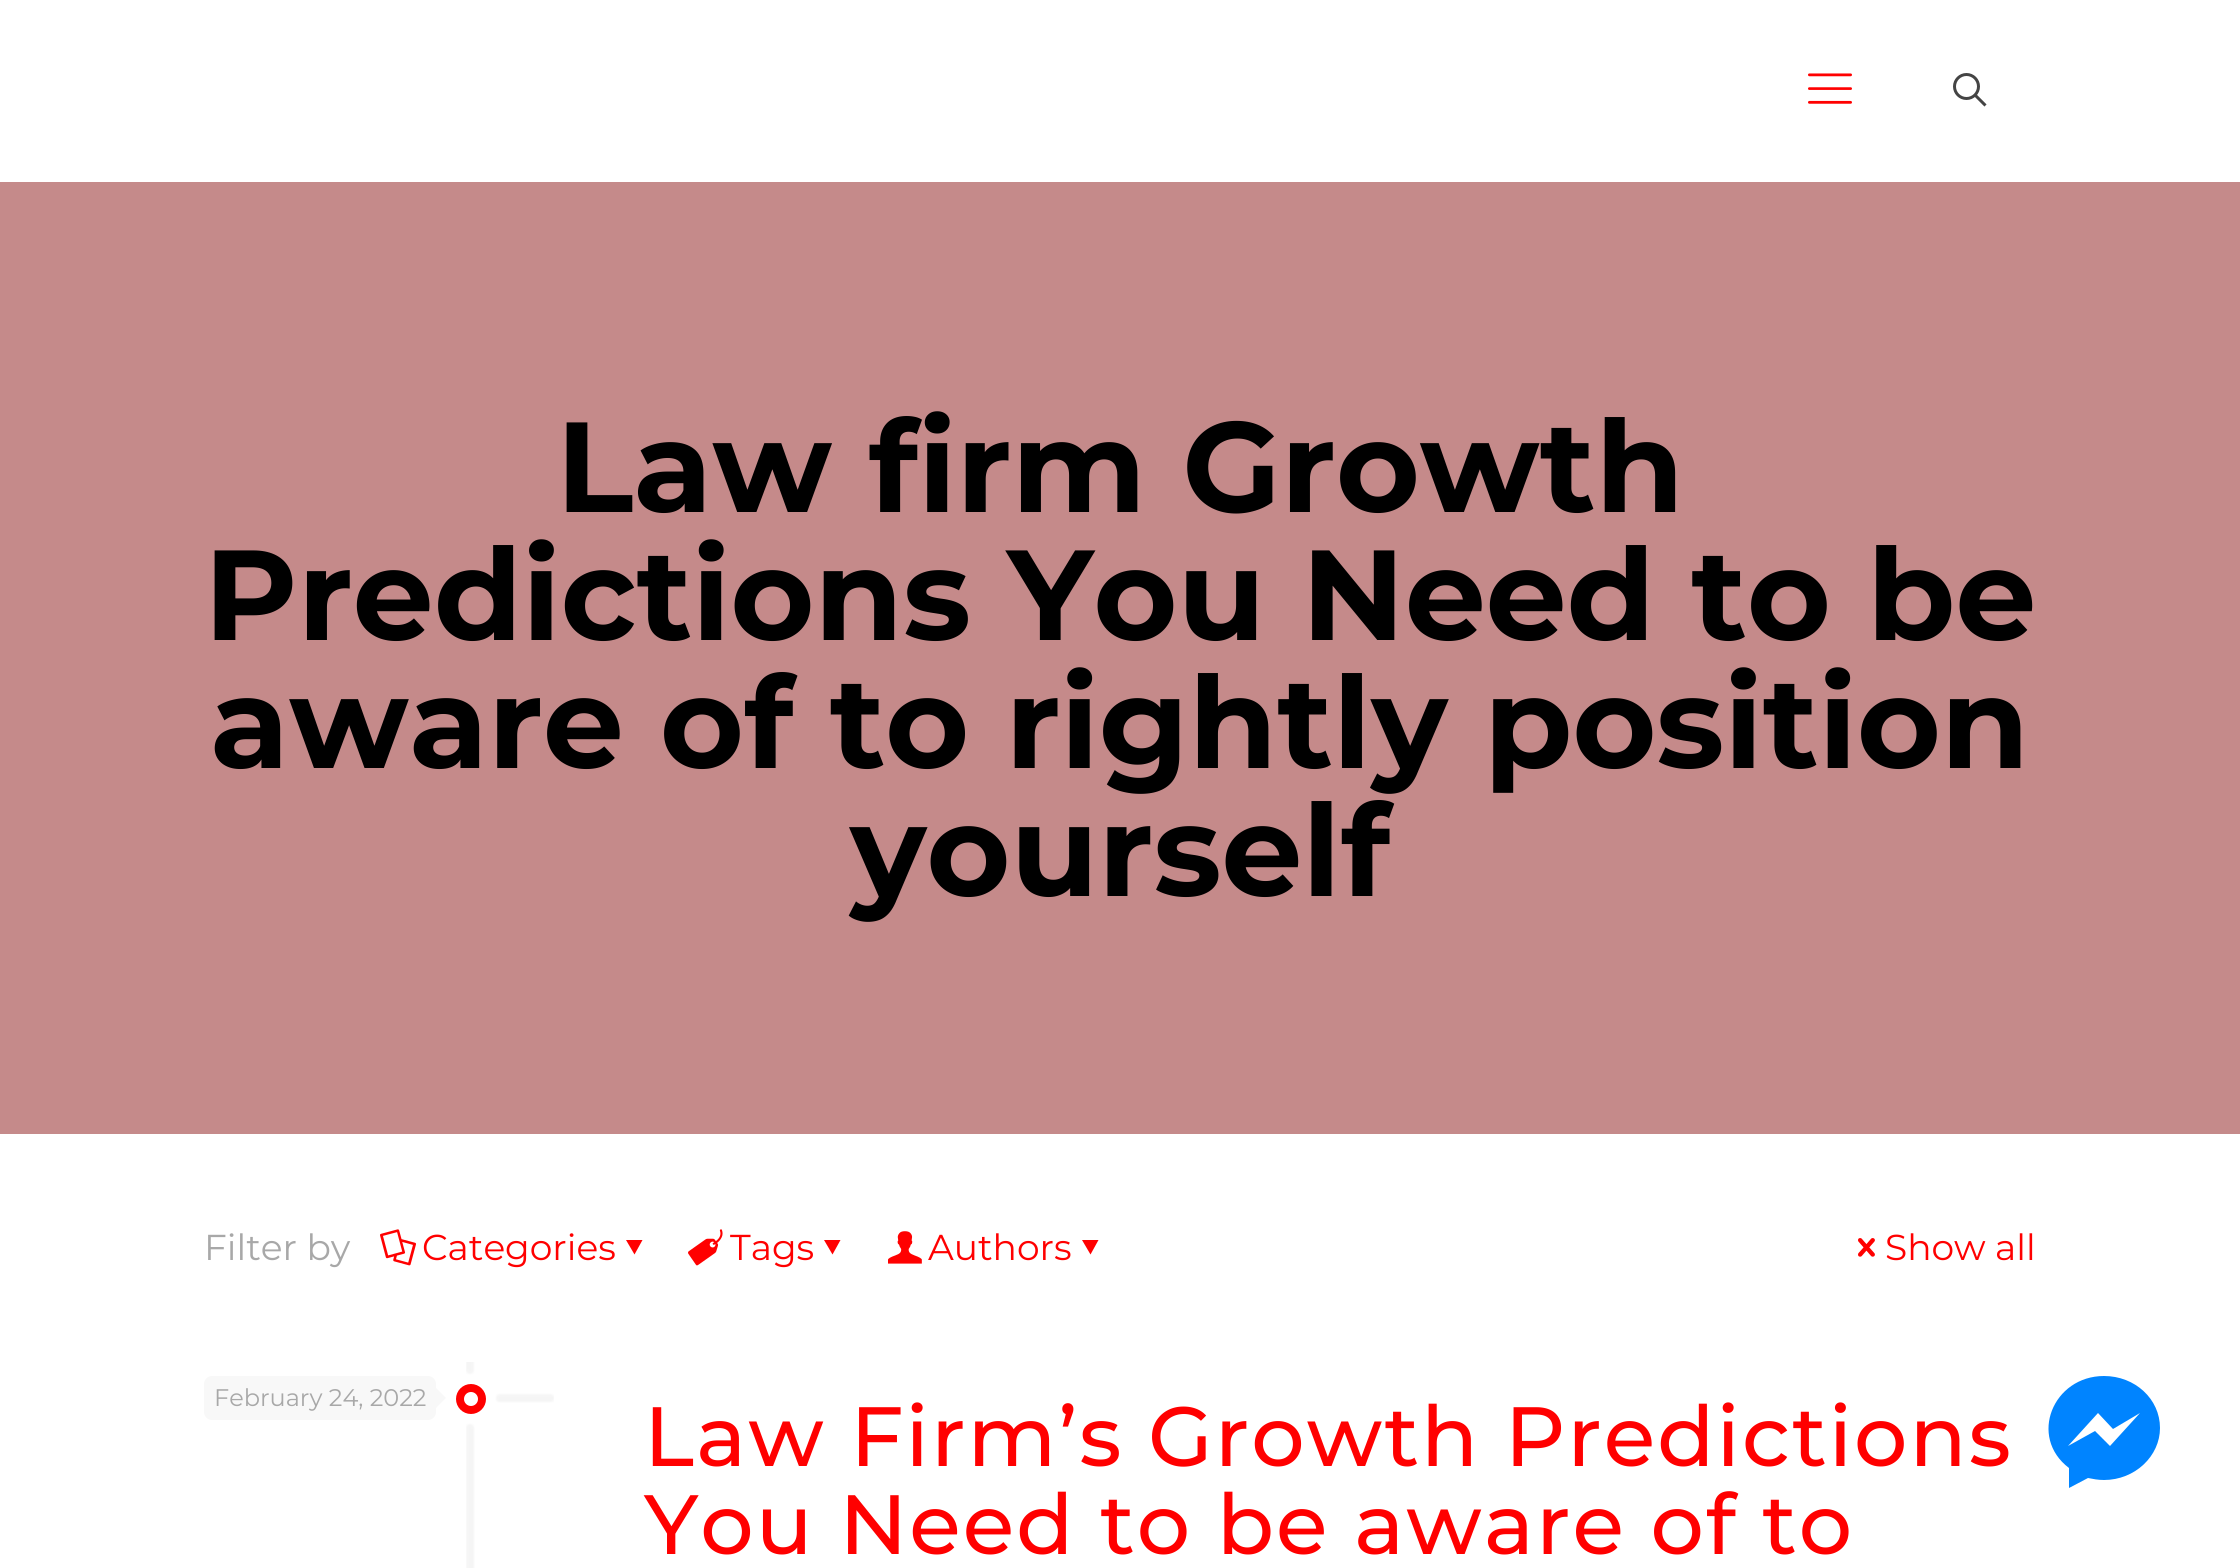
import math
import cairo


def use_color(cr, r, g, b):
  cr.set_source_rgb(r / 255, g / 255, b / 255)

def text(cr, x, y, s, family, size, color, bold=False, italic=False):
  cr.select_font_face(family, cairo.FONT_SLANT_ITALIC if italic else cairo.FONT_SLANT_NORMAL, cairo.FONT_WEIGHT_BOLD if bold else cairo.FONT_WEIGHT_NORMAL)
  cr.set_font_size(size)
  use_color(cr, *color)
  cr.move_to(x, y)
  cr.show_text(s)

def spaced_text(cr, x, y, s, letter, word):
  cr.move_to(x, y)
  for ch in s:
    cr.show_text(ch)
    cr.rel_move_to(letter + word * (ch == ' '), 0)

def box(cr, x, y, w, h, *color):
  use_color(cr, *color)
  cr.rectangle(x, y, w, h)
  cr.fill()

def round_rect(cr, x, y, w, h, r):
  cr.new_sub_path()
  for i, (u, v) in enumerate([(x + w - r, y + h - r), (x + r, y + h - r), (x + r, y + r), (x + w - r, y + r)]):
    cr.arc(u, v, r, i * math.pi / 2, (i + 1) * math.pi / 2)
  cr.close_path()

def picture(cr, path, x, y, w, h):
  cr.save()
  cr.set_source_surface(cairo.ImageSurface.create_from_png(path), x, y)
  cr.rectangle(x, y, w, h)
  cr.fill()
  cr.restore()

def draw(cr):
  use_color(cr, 255, 255, 255)
  cr.paint()
  box(cr, 0, 182, 2240, 952, 197, 138, 138)
  picture(cr, "img_01.png", 1808, 73, 44, 31)
  cr.arc(1966.5, 86.5, 12, 0, 2 * math.pi)
  use_color(cr, 68, 68, 68)
  cr.set_line_width(3)
  cr.stroke()
  cr.new_path()
  cr.move_to(1975, 95)
  cr.line_to(1985.5, 105.5)
  cr.stroke()
  picture(cr, "img_02.png", 380, 1229, 36, 37)
  use_color(cr, 255, 0, 0)
  cr.new_path()
  cr.move_to(642.5, 1240)
  cr.line_to(634.5, 1254.5)
  cr.line_to(626, 1240)
  cr.close_path()
  cr.fill()
  picture(cr, "img_03.png", 688, 1229, 35, 37)
  cr.new_path()
  cr.move_to(840.5, 1240)
  cr.line_to(832.5, 1254.5)
  cr.line_to(824, 1240)
  cr.close_path()
  cr.fill()
  picture(cr, "img_04.png", 888, 1231, 34, 33)
  cr.new_path()
  cr.move_to(1098.5, 1240)
  cr.line_to(1090.5, 1254.5)
  cr.line_to(1082, 1240)
  cr.close_path()
  cr.fill()
  picture(cr, "img_05.png", 1858, 1238, 17, 19)
  picture(cr, "img_06.png", 466, 1362, 88, 206)
  use_color(cr, 248, 248, 248)
  round_rect(cr, 204, 1376, 232, 44, 8)
  cr.fill()
  cr.new_path()
  cr.move_to(436, 1408)
  cr.line_to(436, 1388)
  cr.line_to(446, 1398)
  cr.close_path()
  cr.fill()
  cr.arc(471, 1399, 11, 0, 2 * math.pi)
  use_color(cr, 255, 0, 0)
  cr.set_line_width(8)
  cr.stroke()
  use_color(cr, 0, 132, 255)
  cr.new_path()
  cr.move_to(2104, 1376)
  cr.curve_to(2053, 1376, 2028, 1437, 2069, 1468)
  cr.line_to(2069, 1488)
  cr.line_to(2088, 1478)
  cr.curve_to(2093, 1479, 2098, 1480, 2104, 1480)
  cr.curve_to(2135, 1480, 2160, 1456, 2160, 1428)
  cr.curve_to(2160, 1399, 2135, 1376, 2104, 1376)
  cr.close_path()
  cr.move_to(2110, 1446)
  cr.line_to(2095, 1431)
  cr.line_to(2068, 1446)
  cr.line_to(2098, 1413)
  cr.line_to(2113, 1429)
  cr.line_to(2140, 1413)
  cr.close_path()
  cr.fill()
  text(cr, 556, 512, "Law firm Growth", "Montserrat", 128, (0, 0, 0), bold=True)
  text(cr, 204, 640, "Predictions You Need to be", "Montserrat", 128, (0, 0, 0), bold=True)
  text(cr, 210, 768, "aware of to rightly position", "Montserrat", 128, (0, 0, 0), bold=True)
  text(cr, 850, 896, "yourself", "Montserrat", 128, (0, 0, 0), bold=True)
  text(cr, 204, 1260, "Filter by", "Montserrat", 36, (168, 168, 168))
  text(cr, 422, 1260, "Categories", "Montserrat", 36, (255, 0, 0))
  text(cr, 730, 1260, "Tags", "Montserrat", 36, (255, 0, 0))
  text(cr, 928, 1260, "Authors", "Montserrat", 36, (255, 0, 0))
  text(cr, 1885, 1260, "Show all", "Montserrat", 36, (255, 0, 0))
  text(cr, 214, 1406, "February 24, 2022", "Montserrat", 24, (168, 168, 168))
  cr.select_font_face("Montserrat Medium")
  cr.set_font_size(84)
  use_color(cr, 255, 0, 0)
  spaced_text(cr, 644, 1466, "Law Firm’s Growth Predictions", 2, 0)
  spaced_text(cr, 644, 1554, "You Need to be aware of to", 2, 0)


surface = cairo.ImageSurface(cairo.FORMAT_RGB24, 2240, 1568)
cr = cairo.Context(surface)
options = cairo.FontOptions()
options.set_hint_metrics(cairo.HINT_METRICS_OFF)
options.set_hint_style(cairo.HINT_STYLE_NONE)
cr.set_font_options(options)
cr.set_miter_limit(4)
draw(cr)
surface.write_to_png("out.png")
